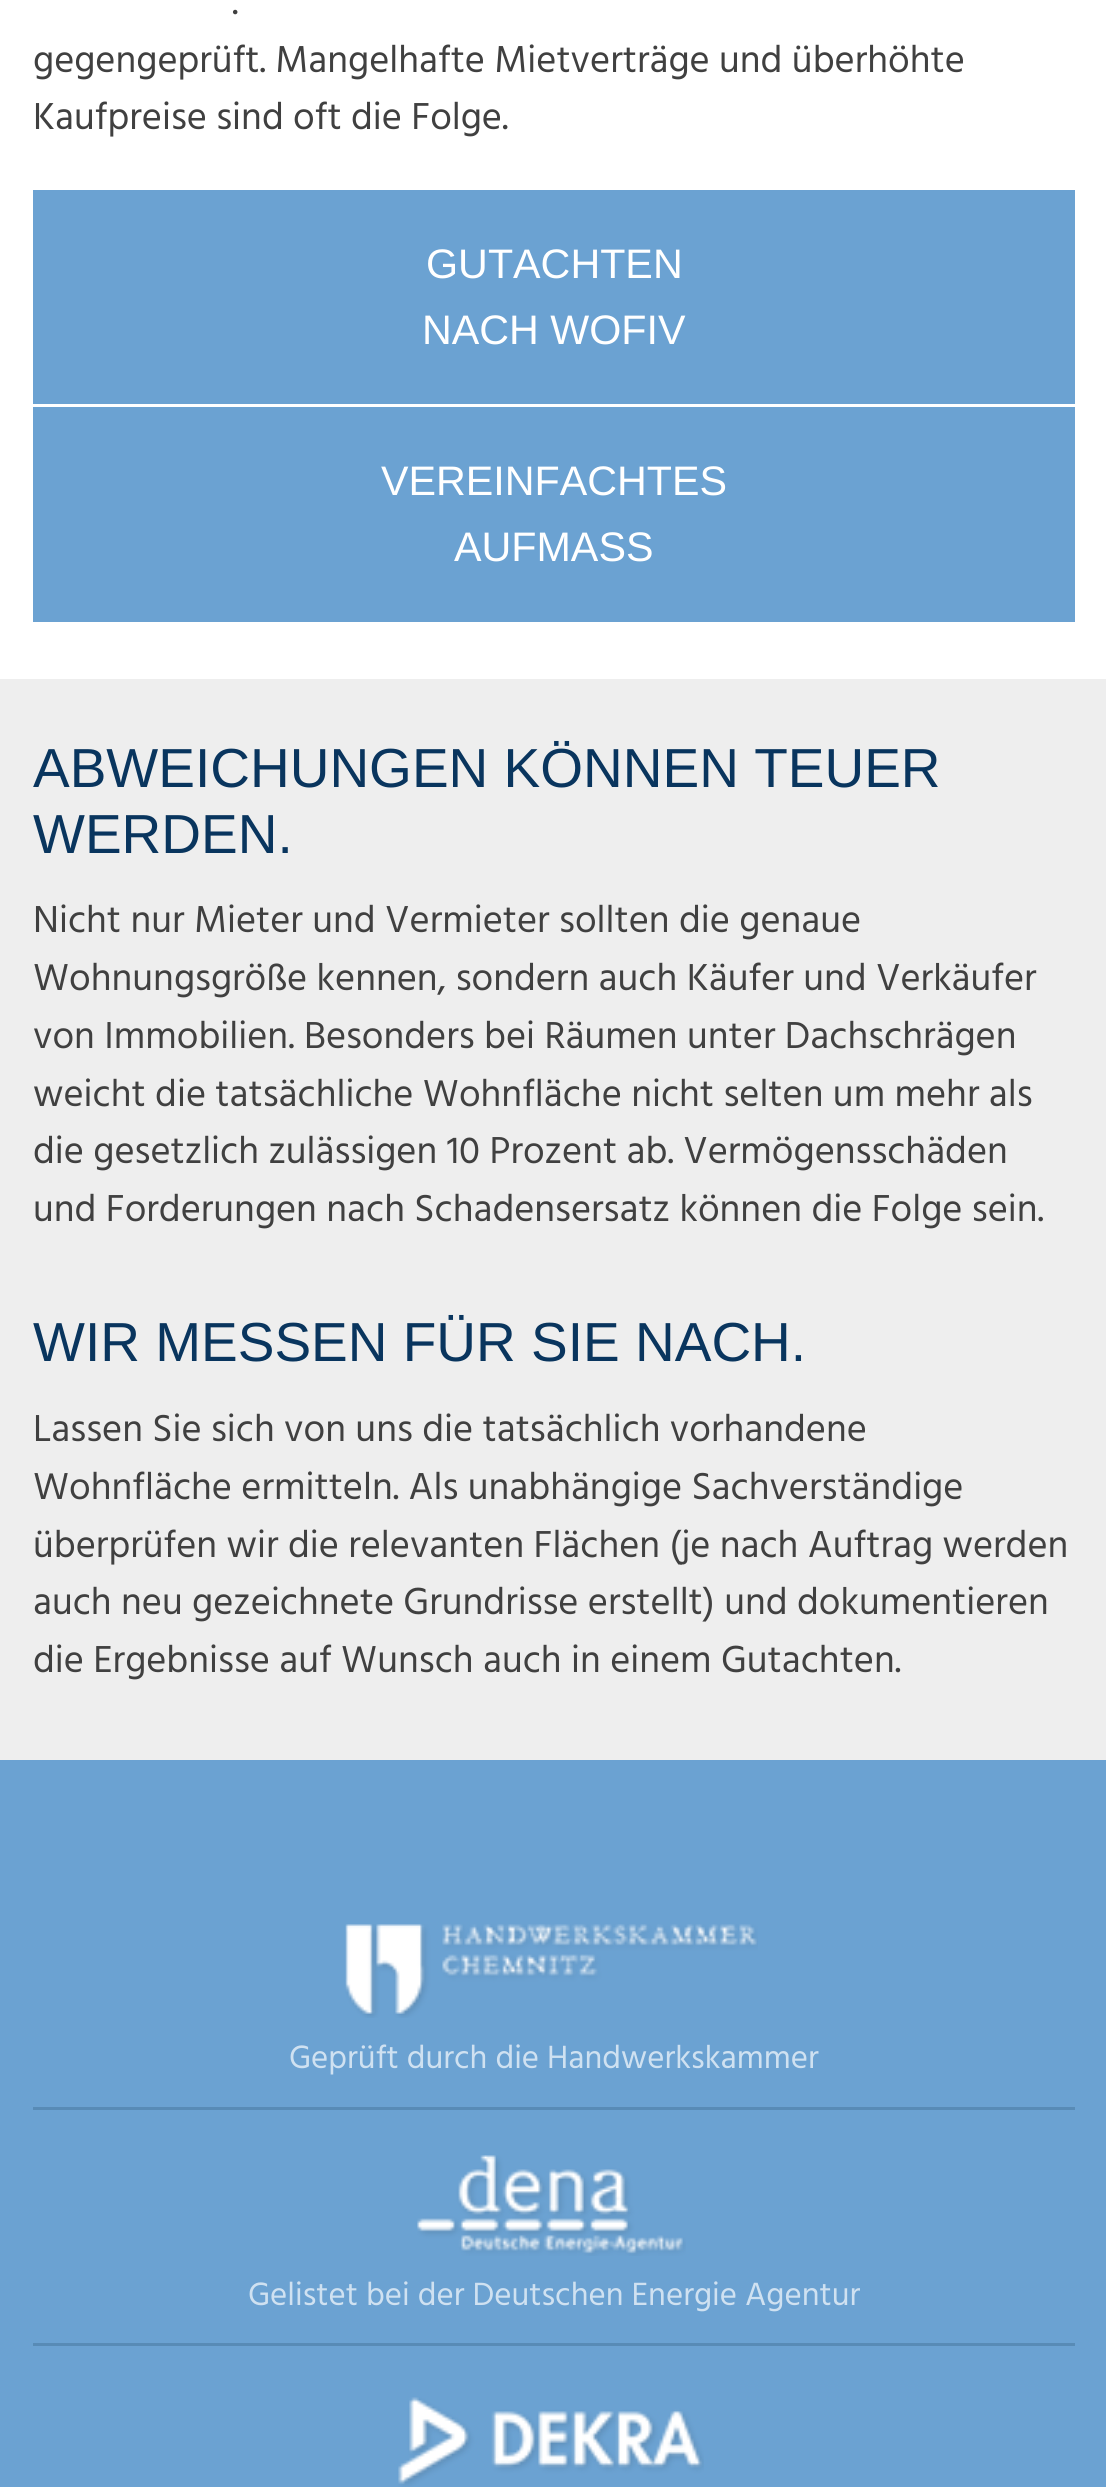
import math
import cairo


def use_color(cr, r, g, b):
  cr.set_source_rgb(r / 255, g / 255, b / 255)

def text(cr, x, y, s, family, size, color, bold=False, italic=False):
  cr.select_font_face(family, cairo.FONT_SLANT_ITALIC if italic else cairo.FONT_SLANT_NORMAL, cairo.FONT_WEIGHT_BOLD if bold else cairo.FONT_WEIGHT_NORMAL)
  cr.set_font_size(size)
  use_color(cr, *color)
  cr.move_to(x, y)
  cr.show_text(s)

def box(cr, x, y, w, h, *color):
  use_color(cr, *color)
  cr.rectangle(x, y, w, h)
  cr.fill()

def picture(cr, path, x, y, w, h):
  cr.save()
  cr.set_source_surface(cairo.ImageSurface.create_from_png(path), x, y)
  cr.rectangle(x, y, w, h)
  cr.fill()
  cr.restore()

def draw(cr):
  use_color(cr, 255, 255, 255)
  cr.paint()
  box(cr, 33, 190, 1042, 214, 107, 162, 210)
  box(cr, 33, 407, 1042, 215, 107, 162, 210)
  box(cr, 0, 679, 1106, 1081, 238, 238, 238)
  box(cr, 0, 1760, 1106, 727, 107, 162, 210)
  picture(cr, "img_01.png", 345, 1924, 413, 94)
  box(cr, 33, 2107, 1042, 3, 88, 139, 182)
  picture(cr, "img_02.png", 417, 2155, 269, 101)
  box(cr, 33, 2343, 1042, 3, 88, 139, 182)
  picture(cr, "img_03.png", 398, 2397, 306, 90)
  text(cr, 232, 14, ".", "Hind", 38.5, (64, 64, 64))
  text(cr, 33, 72, "gegengeprüft. Mangelhafte Mietverträge und überhöhte", "Hind", 38.5, (64, 64, 64))
  text(cr, 33, 129, "Kaufpreise sind oft die Folge.", "Hind", 38.5, (64, 64, 64))
  text(cr, 426, 278, "GUTACHTEN", "Liberation Sans", 41.25, (255, 255, 255))
  text(cr, 422, 344, "NACH WOFIV", "Liberation Sans", 41.25, (255, 255, 255))
  text(cr, 381, 495, "VEREINFACHTES", "Liberation Sans", 41.25, (255, 255, 255))
  text(cr, 454, 561, "AUFMASS", "Liberation Sans", 41.25, (255, 255, 255))
  text(cr, 33, 787, "ABWEICHUNGEN KÖNNEN TEUER", "Liberation Sans", 55, (9, 53, 94))
  text(cr, 33, 853, "WERDEN.", "Liberation Sans", 55, (9, 53, 94))
  text(cr, 33, 932, "Nicht nur Mieter und Vermieter sollten die genaue", "Hind", 38.5, (64, 64, 64))
  text(cr, 33, 990, "Wohnungsgröße kennen, sondern auch Käufer und Verkäufer", "Hind", 38.5, (64, 64, 64))
  text(cr, 33, 1048, "von Immobilien. Besonders bei Räumen unter Dachschrägen", "Hind", 38.5, (64, 64, 64))
  text(cr, 33, 1106, "weicht die tatsächliche Wohnfläche nicht selten um mehr als", "Hind", 38.5, (64, 64, 64))
  text(cr, 33, 1163, "die gesetzlich zulässigen 10 Prozent ab. Vermögensschäden", "Hind", 38.5, (64, 64, 64))
  text(cr, 33, 1221, "und Forderungen nach Schadensersatz können die Folge sein.", "Hind", 38.5, (64, 64, 64))
  text(cr, 33, 1361, "WIR MESSEN FÜR SIE NACH.", "Liberation Sans", 55, (9, 53, 94))
  text(cr, 33, 1441, "Lassen Sie sich von uns die tatsächlich vorhandene", "Hind", 38.5, (64, 64, 64))
  text(cr, 33, 1499, "Wohnfläche ermitteln. Als unabhängige Sachverständige", "Hind", 38.5, (64, 64, 64))
  text(cr, 33, 1557, "überprüfen wir die relevanten Flächen (je nach Auftrag werden", "Hind", 38.5, (64, 64, 64))
  text(cr, 33, 1614, "auch neu gezeichnete Grundrisse erstellt) und dokumentieren", "Hind", 38.5, (64, 64, 64))
  text(cr, 33, 1672, "die Ergebnisse auf Wunsch auch in einem Gutachten.", "Hind", 38.5, (64, 64, 64))
  text(cr, 289, 2068, "Geprüft durch die Handwerkskammer", "Hind", 33, (207, 225, 241))
  text(cr, 248, 2305, "Gelistet bei der Deutschen Energie Agentur", "Hind", 33, (207, 225, 241))


surface = cairo.ImageSurface(cairo.FORMAT_RGB24, 1106, 2487)
cr = cairo.Context(surface)
options = cairo.FontOptions()
options.set_hint_metrics(cairo.HINT_METRICS_OFF)
options.set_hint_style(cairo.HINT_STYLE_NONE)
cr.set_font_options(options)
cr.set_miter_limit(4)
draw(cr)
surface.write_to_png("out.png")
